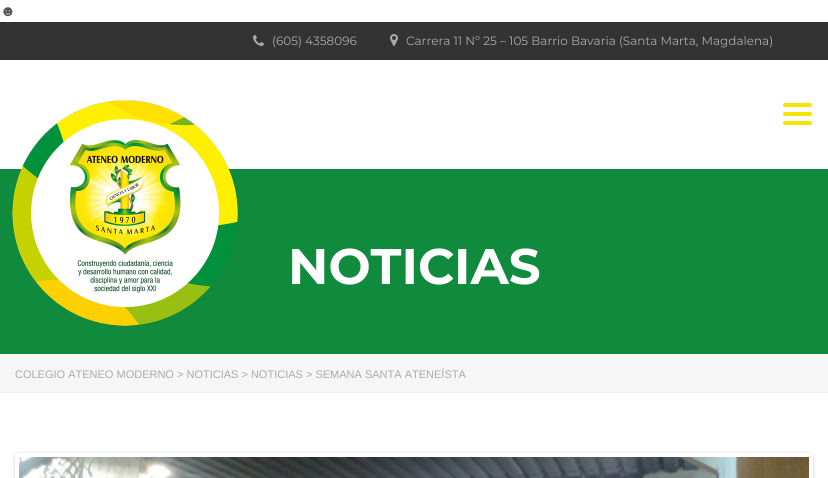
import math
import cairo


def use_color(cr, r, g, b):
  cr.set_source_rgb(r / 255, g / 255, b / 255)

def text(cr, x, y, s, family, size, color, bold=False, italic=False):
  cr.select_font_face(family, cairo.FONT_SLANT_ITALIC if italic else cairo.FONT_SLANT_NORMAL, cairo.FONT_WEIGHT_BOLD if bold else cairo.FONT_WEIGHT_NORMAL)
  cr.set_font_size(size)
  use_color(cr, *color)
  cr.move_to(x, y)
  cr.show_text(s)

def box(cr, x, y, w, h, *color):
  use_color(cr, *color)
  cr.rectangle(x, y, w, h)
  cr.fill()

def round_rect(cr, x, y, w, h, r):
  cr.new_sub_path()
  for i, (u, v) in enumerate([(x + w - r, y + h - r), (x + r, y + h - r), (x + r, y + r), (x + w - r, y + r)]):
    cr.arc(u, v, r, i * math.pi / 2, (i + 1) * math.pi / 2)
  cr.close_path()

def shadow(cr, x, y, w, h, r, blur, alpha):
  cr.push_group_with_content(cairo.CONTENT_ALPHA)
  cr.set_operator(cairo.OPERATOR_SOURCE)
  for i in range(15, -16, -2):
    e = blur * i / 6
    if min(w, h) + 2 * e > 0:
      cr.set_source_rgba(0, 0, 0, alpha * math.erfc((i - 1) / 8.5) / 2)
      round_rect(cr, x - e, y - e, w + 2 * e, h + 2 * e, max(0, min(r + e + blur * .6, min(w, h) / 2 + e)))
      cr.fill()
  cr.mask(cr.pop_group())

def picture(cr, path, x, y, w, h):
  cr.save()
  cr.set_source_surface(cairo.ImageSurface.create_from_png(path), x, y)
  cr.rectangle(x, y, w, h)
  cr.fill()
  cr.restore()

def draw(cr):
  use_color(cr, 255, 255, 255)
  cr.paint()
  box(cr, 0, 22, 828, 38, 51, 51, 51)
  picture(cr, "img_01.png", 253, 35, 11, 11)
  picture(cr, "img_02.png", 390, 34, 8, 12)
  box(cr, 0, 169, 828, 185, 16, 138, 60)
  picture(cr, "img_03.png", 12, 100, 226, 226)
  use_color(cr, 244, 228, 0)
  round_rect(cr, 783, 103, 29, 4, 2)
  cr.fill()
  round_rect(cr, 783, 112, 29, 4, 2)
  cr.fill()
  round_rect(cr, 783, 121, 29, 4, 2)
  cr.fill()
  box(cr, 0, 354, 828, 38, 246, 246, 246)
  box(cr, 0, 392, 828, 1, 240, 242, 245)
  use_color(cr, 0, 0, 0)
  shadow(cr, 15, 454, 798, 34, 4, 2, 0.2)
  use_color(cr, 255, 255, 255)
  round_rect(cr, 15, 453, 798, 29, 4)
  cr.fill()
  picture(cr, "img_04.png", 19, 457, 790, 21)
  text(cr, 0, 16, "☻", "Liberation Sans", 15, (85, 85, 85))
  text(cr, 272, 45, "(605) 4358096", "Montserrat", 12, (170, 170, 170))
  text(cr, 406, 45, "Carrera 11 Nº 25 – 105 Barrio Bavaria (Santa Marta, Magdalena)", "Montserrat", 12, (170, 170, 170))
  text(cr, 288, 284, "NOTICIAS", "Montserrat", 50, (255, 255, 255), bold=True)
  text(cr, 15, 378, "COLEGIO ATENEO MODERNO > NOTICIAS > NOTICIAS > SEMANA SANTA ATENEÍSTA", "Liberation Sans", 11, (170, 170, 170))


surface = cairo.ImageSurface(cairo.FORMAT_RGB24, 828, 478)
cr = cairo.Context(surface)
options = cairo.FontOptions()
options.set_hint_metrics(cairo.HINT_METRICS_OFF)
options.set_hint_style(cairo.HINT_STYLE_NONE)
cr.set_font_options(options)
cr.set_miter_limit(4)
draw(cr)
surface.write_to_png("out.png")
